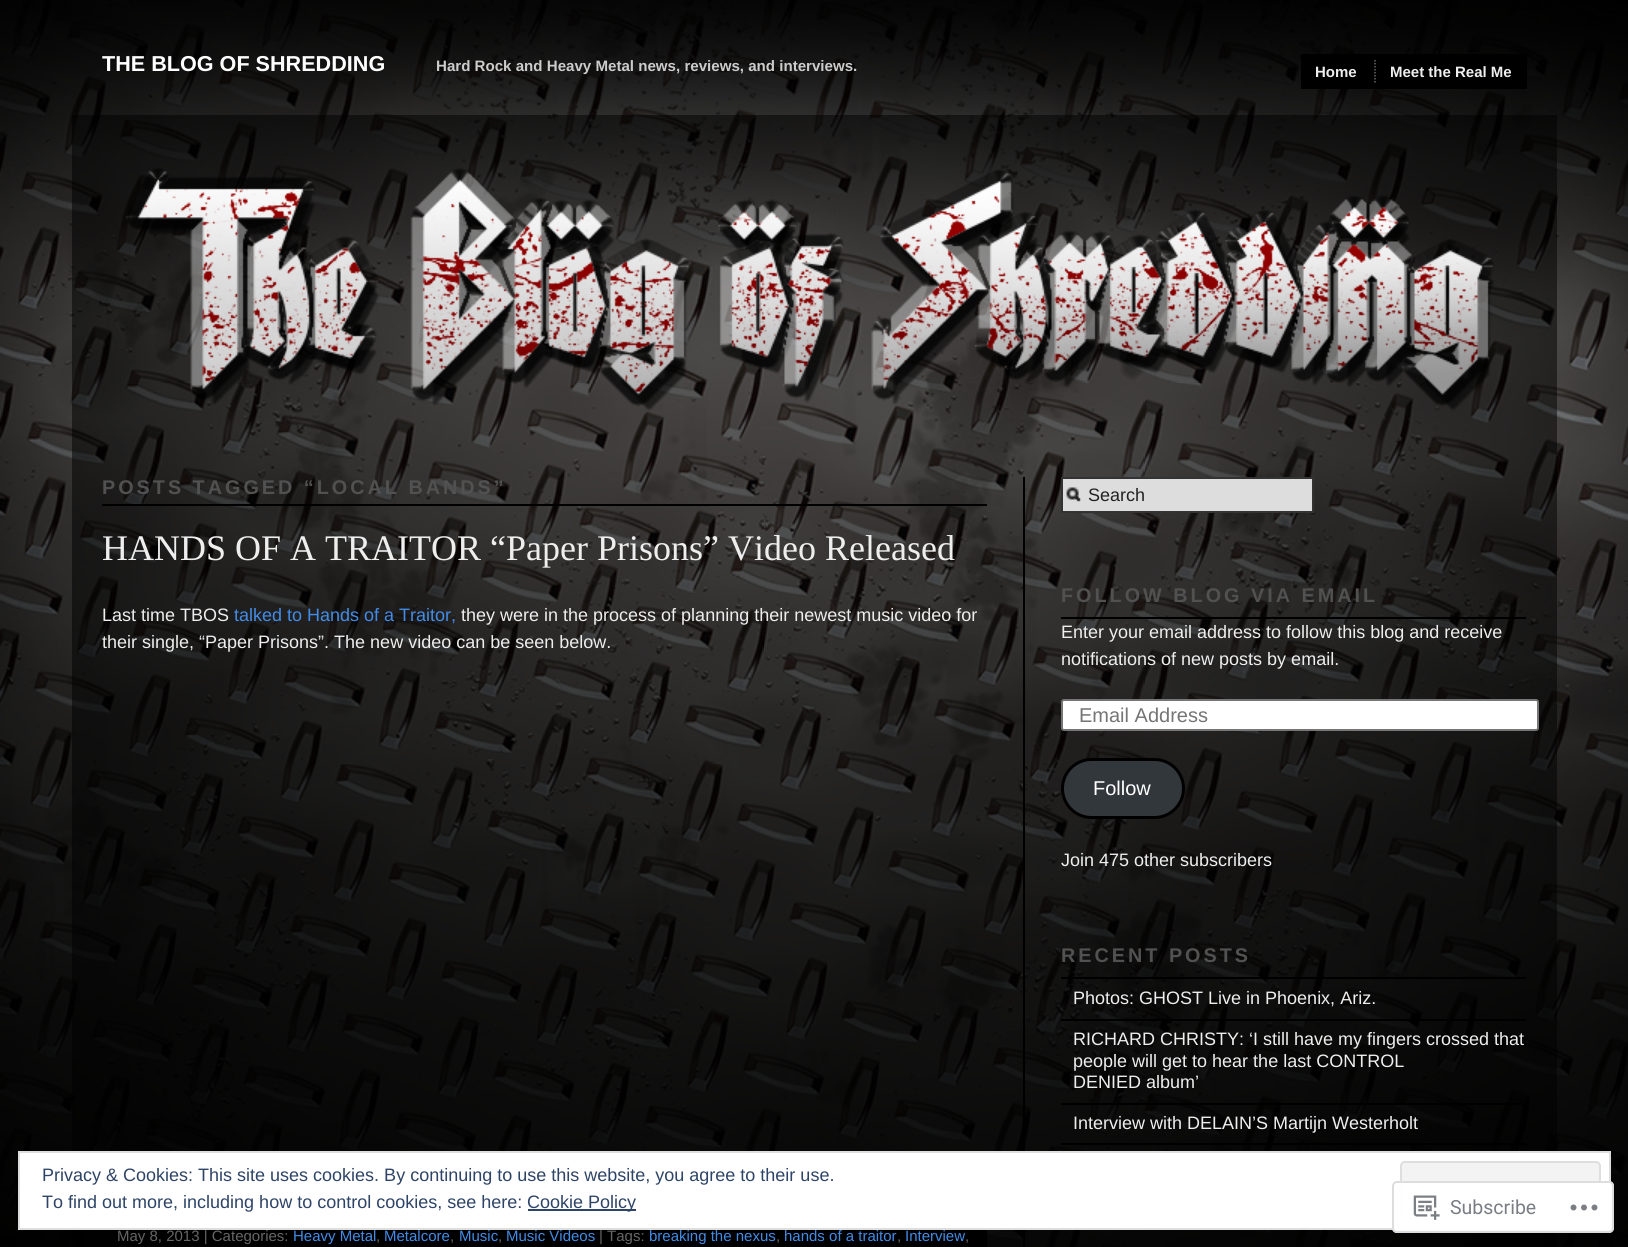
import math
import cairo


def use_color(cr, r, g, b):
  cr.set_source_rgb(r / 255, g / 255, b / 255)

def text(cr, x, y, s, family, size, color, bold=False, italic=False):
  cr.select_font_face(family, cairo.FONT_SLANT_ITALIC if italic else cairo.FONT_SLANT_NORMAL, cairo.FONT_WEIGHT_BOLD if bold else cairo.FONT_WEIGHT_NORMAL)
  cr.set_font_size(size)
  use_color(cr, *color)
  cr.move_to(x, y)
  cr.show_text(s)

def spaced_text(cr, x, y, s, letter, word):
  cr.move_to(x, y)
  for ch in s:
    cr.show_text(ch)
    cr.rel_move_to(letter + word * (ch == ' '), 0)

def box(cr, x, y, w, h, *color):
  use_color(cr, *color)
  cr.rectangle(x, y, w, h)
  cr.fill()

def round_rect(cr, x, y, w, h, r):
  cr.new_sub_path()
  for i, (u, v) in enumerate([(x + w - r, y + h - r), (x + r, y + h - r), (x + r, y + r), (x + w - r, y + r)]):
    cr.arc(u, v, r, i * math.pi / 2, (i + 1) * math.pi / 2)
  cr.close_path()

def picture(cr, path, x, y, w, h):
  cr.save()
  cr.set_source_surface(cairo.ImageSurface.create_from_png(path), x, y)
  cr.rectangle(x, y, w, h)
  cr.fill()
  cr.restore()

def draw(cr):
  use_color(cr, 255, 255, 255)
  cr.paint()
  picture(cr, "img_01.png", 0, 0, 1628, 1247)
  box(cr, 1301, 54, 226, 35, 0, 0, 0)
  cr.new_path()
  cr.move_to(1375, 60)
  cr.line_to(1375, 82.5)
  use_color(cr, 102, 102, 102)
  cr.set_line_width(1.5)
  cr.set_dash([1.5, 1.5])
  cr.stroke()
  cr.set_source_rgba(0, 0, 0, 0.5)
  cr.rectangle(72, 115, 1485, 1132)
  cr.fill()
  picture(cr, "img_02.png", 126, 168, 1368, 243)
  box(cr, 1023, 477, 2, 770, 0, 0, 0)
  box(cr, 102, 504, 885, 2, 0, 0, 0)
  box(cr, 159, 1230, 828, 17, 0, 0, 0)
  box(cr, 1063, 479, 249, 32, 221, 221, 221)
  picture(cr, "img_03.png", 1066, 487, 15, 15)
  cr.rectangle(1062, 478, 251, 34)
  use_color(cr, 51, 51, 51)
  cr.set_line_width(2)
  cr.set_dash([])
  cr.stroke()
  box(cr, 1061, 617, 465, 2, 0, 0, 0)
  use_color(cr, 255, 255, 255)
  round_rect(cr, 1062, 700, 476, 30, 2)
  cr.fill_preserve()
  use_color(cr, 118, 118, 118)
  cr.stroke()
  use_color(cr, 50, 55, 60)
  round_rect(cr, 1062.5, 759.5, 121, 58, 29)
  cr.fill_preserve()
  use_color(cr, 0, 0, 0)
  cr.set_line_width(3)
  cr.stroke()
  box(cr, 1061, 977, 465, 2, 0, 0, 0)
  box(cr, 1061, 1019, 465, 2, 0, 0, 0)
  box(cr, 1061, 1103, 465, 2, 0, 0, 0)
  box(cr, 1061, 1143, 465, 2, 0, 0, 0)
  use_color(cr, 255, 255, 255)
  cr.rectangle(19, 1152, 1591, 77)
  cr.fill_preserve()
  use_color(cr, 222, 222, 222)
  cr.set_line_width(2)
  cr.stroke()
  use_color(cr, 243, 243, 243)
  round_rect(cr, 1401, 1162, 199, 57, 4)
  cr.fill_preserve()
  use_color(cr, 222, 222, 222)
  cr.stroke()
  cr.set_source_rgba(1, 1, 1, 0.98)
  round_rect(cr, 1392, 1181, 222, 52, 5)
  cr.fill()
  round_rect(cr, 1393, 1182, 220, 50, 4)
  cr.set_source_rgba(0.863, 0.863, 0.871, 0.98)
  cr.stroke()
  picture(cr, "img_04.png", 1413, 1195, 27, 25)
  picture(cr, "img_05.png", 1570, 1204, 28, 7)
  box(cr, 528, 1209, 108, 2, 46, 68, 103)
  text(cr, 102, 71, "THE BLOG OF SHREDDING", "Liberation Sans", 21.6, (255, 255, 255), bold=True)
  text(cr, 436, 71, "Hard Rock and Heavy Metal news, reviews, and interviews.", "Liberation Sans", 15.1, (204, 204, 204), bold=True)
  text(cr, 1315, 77, "Home", "Liberation Sans", 15, (238, 238, 238), bold=True)
  text(cr, 1390, 77, "Meet the Real Me", "Liberation Sans", 15, (238, 238, 238), bold=True)
  cr.set_font_size(19.8)
  use_color(cr, 81, 81, 81)
  spaced_text(cr, 102, 494, "POSTS TAGGED “LOCAL BANDS”", 3, 0)
  text(cr, 102, 560, "HANDS OF A TRAITOR “Paper Prisons” Video Released", "Liberation Serif", 36, (238, 238, 238))
  text(cr, 102, 621, "Last time TBOS", "Liberation Sans", 18, (238, 238, 238))
  text(cr, 234, 621, "talked to Hands of a Traitor,", "Liberation Sans", 18, (66, 140, 231))
  text(cr, 461, 621, "they were in the process of planning their newest music video for", "Liberation Sans", 18, (238, 238, 238))
  text(cr, 102, 648, "their single, “Paper Prisons”. The new video can be seen below.", "Liberation Sans", 18, (238, 238, 238))
  text(cr, 117, 1241, "May 8, 2013 | Categories:", "Liberation Sans", 15, (102, 102, 102))
  text(cr, 293, 1241, "Heavy Metal", "Liberation Sans", 15, (66, 140, 231))
  text(cr, 376, 1241, ",", "Liberation Sans", 15, (102, 102, 102))
  text(cr, 384, 1241, "Metalcore", "Liberation Sans", 15, (66, 140, 231))
  text(cr, 450, 1241, ",", "Liberation Sans", 15, (102, 102, 102))
  text(cr, 459, 1241, "Music", "Liberation Sans", 15, (66, 140, 231))
  text(cr, 498, 1241, ",", "Liberation Sans", 15, (102, 102, 102))
  text(cr, 506, 1241, "Music Videos", "Liberation Sans", 15, (66, 140, 231))
  text(cr, 599, 1241, "| Tags:", "Liberation Sans", 15, (102, 102, 102))
  text(cr, 649, 1241, "breaking the nexus", "Liberation Sans", 15, (66, 140, 231))
  text(cr, 776, 1241, ",", "Liberation Sans", 15, (102, 102, 102))
  text(cr, 784, 1241, "hands of a traitor", "Liberation Sans", 15, (66, 140, 231))
  text(cr, 897, 1241, ",", "Liberation Sans", 15, (102, 102, 102))
  text(cr, 905, 1241, "Interview", "Liberation Sans", 15, (66, 140, 231))
  text(cr, 965, 1241, ",", "Liberation Sans", 15, (102, 102, 102))
  text(cr, 1088, 501, "Search", "Liberation Sans", 18, (34, 34, 34))
  cr.select_font_face("Liberation Sans", cairo.FONT_SLANT_NORMAL, cairo.FONT_WEIGHT_BOLD)
  cr.set_font_size(19.8)
  use_color(cr, 81, 81, 81)
  spaced_text(cr, 1061, 602, "FOLLOW BLOG VIA EMAIL", 3, 0)
  text(cr, 1061, 638, "Enter your email address to follow this blog and receive", "Liberation Sans", 18, (238, 238, 238))
  text(cr, 1061, 665, "notifications of new posts by email.", "Liberation Sans", 18, (238, 238, 238))
  text(cr, 1079, 722, "Email Address", "Liberation Sans", 20, (117, 117, 117))
  text(cr, 1093, 795, "Follow", "Liberation Sans", 20, (255, 255, 255))
  text(cr, 1061, 866, "Join 475 other subscribers", "Liberation Sans", 18, (238, 238, 238))
  cr.select_font_face("Liberation Sans", cairo.FONT_SLANT_NORMAL, cairo.FONT_WEIGHT_BOLD)
  cr.set_font_size(19.8)
  use_color(cr, 81, 81, 81)
  spaced_text(cr, 1061, 962, "RECENT POSTS", 3, 0)
  text(cr, 1073, 1004, "Photos: GHOST Live in Phoenix, Ariz.", "Liberation Sans", 18, (238, 238, 238))
  text(cr, 1073, 1045, "RICHARD CHRISTY: ‘I still have my fingers crossed that", "Liberation Sans", 18, (238, 238, 238))
  text(cr, 1073, 1067, "people will get to hear the last CONTROL", "Liberation Sans", 18, (238, 238, 238))
  text(cr, 1073, 1088, "DENIED album’", "Liberation Sans", 18, (238, 238, 238))
  text(cr, 1073, 1129, "Interview with DELAIN’S Martijn Westerholt", "Liberation Sans", 18, (238, 238, 238))
  text(cr, 1450, 1214, "Subscribe", "Roboto", 19.5, (122, 126, 132))
  text(cr, 42, 1181, "Privacy & Cookies: This site uses cookies. By continuing to use this website, you agree to their use.", "Liberation Sans", 18, (46, 68, 103))
  text(cr, 42, 1208, "To find out more, including how to control cookies, see here:", "Liberation Sans", 18, (46, 68, 103))
  text(cr, 527, 1208, "Cookie Policy", "Liberation Sans", 18, (46, 68, 103))


surface = cairo.ImageSurface(cairo.FORMAT_RGB24, 1628, 1247)
cr = cairo.Context(surface)
options = cairo.FontOptions()
options.set_hint_metrics(cairo.HINT_METRICS_OFF)
options.set_hint_style(cairo.HINT_STYLE_NONE)
cr.set_font_options(options)
cr.set_miter_limit(4)
draw(cr)
surface.write_to_png("out.png")
